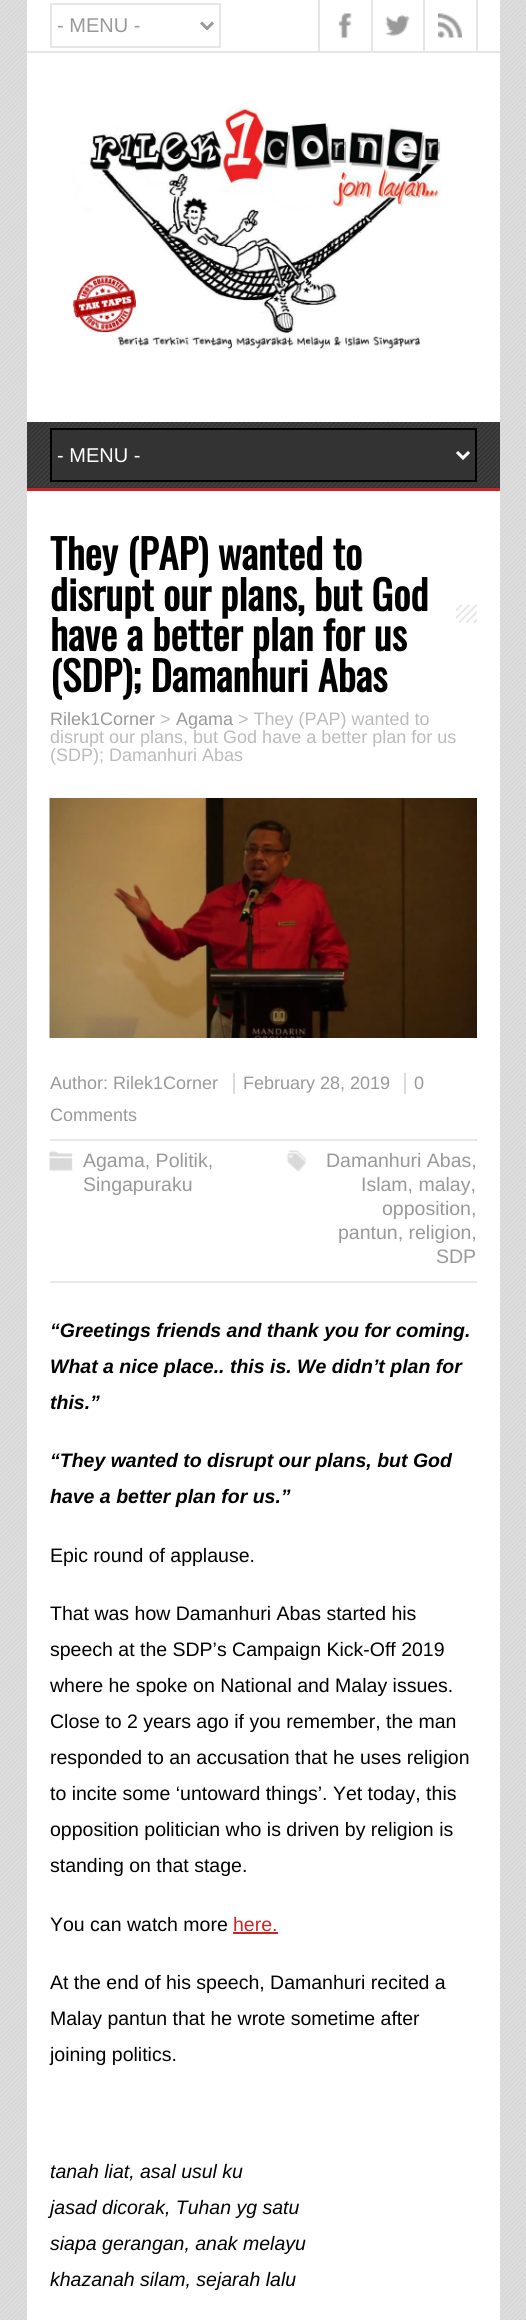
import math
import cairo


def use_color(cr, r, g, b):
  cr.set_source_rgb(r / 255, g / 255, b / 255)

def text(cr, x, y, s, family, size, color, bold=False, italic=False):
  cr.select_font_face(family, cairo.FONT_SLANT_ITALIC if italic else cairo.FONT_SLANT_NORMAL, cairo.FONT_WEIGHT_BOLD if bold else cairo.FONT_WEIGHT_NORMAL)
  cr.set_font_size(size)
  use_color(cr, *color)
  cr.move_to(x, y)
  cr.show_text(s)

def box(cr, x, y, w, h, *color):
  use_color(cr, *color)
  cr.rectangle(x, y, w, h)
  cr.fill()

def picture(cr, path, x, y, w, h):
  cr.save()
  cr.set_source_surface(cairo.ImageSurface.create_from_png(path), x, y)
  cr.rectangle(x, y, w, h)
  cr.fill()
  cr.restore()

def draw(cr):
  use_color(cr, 222, 222, 222)
  cr.paint()
  picture(cr, "img_01.png", 0, 0, 526, 2320)
  box(cr, 27, 0, 473, 422, 255, 255, 255)
  box(cr, 27, 51, 473, 2, 230, 230, 230)
  cr.rectangle(51, 4, 169, 43)
  cr.stroke()
  cr.new_path()
  cr.move_to(201, 22.5)
  cr.line_to(207, 28.5)
  cr.line_to(213, 22.5)
  use_color(cr, 153, 153, 153)
  cr.set_line_width(3)
  cr.stroke()
  box(cr, 318, 0, 2, 51, 230, 230, 230)
  picture(cr, "img_02.png", 338, 13, 14, 25)
  box(cr, 371, 0, 2, 51, 230, 230, 230)
  picture(cr, "img_03.png", 385, 14, 25, 23)
  box(cr, 423, 0, 2, 51, 230, 230, 230)
  picture(cr, "img_04.png", 438, 13, 24, 25)
  box(cr, 476, 0, 2, 51, 230, 230, 230)
  picture(cr, "img_05.png", 72, 107, 369, 244)
  box(cr, 27, 422, 473, 66, 51, 51, 51)
  box(cr, 27, 488, 473, 3, 205, 35, 36)
  picture(cr, "img_06.png", 27, 422, 473, 66)
  use_color(cr, 51, 51, 51)
  cr.rectangle(51, 429, 425, 52)
  cr.fill_preserve()
  use_color(cr, 0, 0, 0)
  cr.set_line_width(2)
  cr.stroke()
  cr.new_path()
  cr.move_to(457, 452)
  cr.line_to(463, 458)
  cr.line_to(469, 452)
  use_color(cr, 255, 255, 255)
  cr.set_line_width(3)
  cr.stroke()
  box(cr, 27, 491, 473, 1829, 255, 255, 255)
  picture(cr, "img_07.png", 49, 604, 428, 19)
  box(cr, 50, 604, 406, 19, 255, 255, 255)
  picture(cr, "img_08.png", 49, 798, 428, 240)
  box(cr, 233, 1073, 2, 21, 219, 219, 219)
  box(cr, 404, 1073, 2, 21, 219, 219, 219)
  box(cr, 50, 1139, 427, 2, 232, 232, 232)
  box(cr, 50, 1281, 427, 2, 232, 232, 232)
  picture(cr, "img_09.png", 49, 1150, 24, 22)
  picture(cr, "img_10.png", 286, 1150, 21, 22)
  box(cr, 233, 1932, 45, 2, 205, 35, 36)
  text(cr, 57, 32, "- MENU -", "Liberation Sans", 20, (153, 153, 153))
  text(cr, 57, 462, "- MENU -", "Liberation Sans", 20, (255, 255, 255))
  text(cr, 50, 570, "They (PAP) wanted to", "Oswald", 40.5, (0, 0, 0), bold=True)
  text(cr, 50, 611, "disrupt our plans, but God", "Oswald", 40.5, (0, 0, 0), bold=True)
  text(cr, 50, 651, "have a better plan for us", "Oswald", 40.5, (0, 0, 0), bold=True)
  text(cr, 50, 692, "(SDP); Damanhuri Abas", "Oswald", 40.5, (0, 0, 0), bold=True)
  text(cr, 50, 725, "Rilek1Corner", "Liberation Sans", 18, (153, 153, 153))
  text(cr, 160, 725, ">", "Liberation Sans", 18, (187, 187, 187))
  text(cr, 176, 725, "Agama", "Liberation Sans", 18, (153, 153, 153))
  text(cr, 238, 725, "> They (PAP) wanted to", "Liberation Sans", 18, (187, 187, 187))
  text(cr, 50, 743, "disrupt our plans, but God have a better plan for us", "Liberation Sans", 18, (187, 187, 187))
  text(cr, 50, 761, "(SDP); Damanhuri Abas", "Liberation Sans", 18, (187, 187, 187))
  text(cr, 50, 1089, "Author: Rilek1Corner", "Liberation Sans", 18, (153, 153, 153))
  text(cr, 243, 1089, "February 28, 2019", "Liberation Sans", 18, (153, 153, 153))
  text(cr, 414, 1089, "0", "Liberation Sans", 18, (153, 153, 153))
  text(cr, 50, 1121, "Comments", "Liberation Sans", 18, (153, 153, 153))
  text(cr, 83, 1167, "Agama, Politik,", "Liberation Sans", 19.5, (153, 153, 153))
  text(cr, 83, 1191, "Singapuraku", "Liberation Sans", 19.5, (153, 153, 153))
  text(cr, 326, 1167, "Damanhuri Abas,", "Liberation Sans", 19.5, (153, 153, 153))
  text(cr, 361, 1191, "Islam, malay,", "Liberation Sans", 19.5, (153, 153, 153))
  text(cr, 382, 1215, "opposition,", "Liberation Sans", 19.5, (153, 153, 153))
  text(cr, 338, 1239, "pantun, religion,", "Liberation Sans", 19.5, (153, 153, 153))
  text(cr, 436, 1263, "SDP", "Liberation Sans", 19.5, (153, 153, 153))
  text(cr, 50, 1337, "“Greetings friends and thank you for coming.", "Liberation Sans", 19.5, (0, 0, 0), bold=True, italic=True)
  text(cr, 50, 1373, "What a nice place.. this is. We didn’t plan for", "Liberation Sans", 19.5, (0, 0, 0), bold=True, italic=True)
  text(cr, 50, 1409, "this.”", "Liberation Sans", 19.5, (0, 0, 0), bold=True, italic=True)
  text(cr, 50, 1467, "“They wanted to disrupt our plans, but God", "Liberation Sans", 19.5, (0, 0, 0), bold=True, italic=True)
  text(cr, 50, 1503, "have a better plan for us.”", "Liberation Sans", 19.5, (0, 0, 0), bold=True, italic=True)
  text(cr, 50, 1562, "Epic round of applause.", "Liberation Sans", 19.5, (0, 0, 0))
  text(cr, 50, 1620, "That was how Damanhuri Abas started his", "Liberation Sans", 19.5, (0, 0, 0))
  text(cr, 50, 1656, "speech at the SDP’s Campaign Kick-Off 2019", "Liberation Sans", 19.5, (0, 0, 0))
  text(cr, 50, 1692, "where he spoke on National and Malay issues.", "Liberation Sans", 19.5, (0, 0, 0))
  text(cr, 50, 1728, "Close to 2 years ago if you remember, the man", "Liberation Sans", 19.5, (0, 0, 0))
  text(cr, 50, 1764, "responded to an accusation that he uses religion", "Liberation Sans", 19.5, (0, 0, 0))
  text(cr, 50, 1800, "to incite some ‘untoward things’. Yet today, this", "Liberation Sans", 19.5, (0, 0, 0))
  text(cr, 50, 1836, "opposition politician who is driven by religion is", "Liberation Sans", 19.5, (0, 0, 0))
  text(cr, 50, 1872, "standing on that stage.", "Liberation Sans", 19.5, (0, 0, 0))
  text(cr, 50, 1931, "You can watch more", "Liberation Sans", 19.5, (0, 0, 0))
  text(cr, 233, 1931, "here.", "Liberation Sans", 19.5, (205, 35, 36))
  text(cr, 50, 1989, "At the end of his speech, Damanhuri recited a", "Liberation Sans", 19.5, (0, 0, 0))
  text(cr, 50, 2025, "Malay pantun that he wrote sometime after", "Liberation Sans", 19.5, (0, 0, 0))
  text(cr, 50, 2061, "joining politics.", "Liberation Sans", 19.5, (0, 0, 0))
  text(cr, 50, 2178, "tanah liat, asal usul ku", "Liberation Sans", 19.5, (0, 0, 0), italic=True)
  text(cr, 50, 2214, "jasad dicorak, Tuhan yg satu", "Liberation Sans", 19.5, (0, 0, 0), italic=True)
  text(cr, 50, 2250, "siapa gerangan, anak melayu", "Liberation Sans", 19.5, (0, 0, 0), italic=True)
  text(cr, 50, 2286, "khazanah silam, sejarah lalu", "Liberation Sans", 19.5, (0, 0, 0), italic=True)


surface = cairo.ImageSurface(cairo.FORMAT_RGB24, 526, 2320)
cr = cairo.Context(surface)
options = cairo.FontOptions()
options.set_hint_metrics(cairo.HINT_METRICS_OFF)
options.set_hint_style(cairo.HINT_STYLE_NONE)
cr.set_font_options(options)
cr.set_miter_limit(4)
draw(cr)
surface.write_to_png("out.png")
